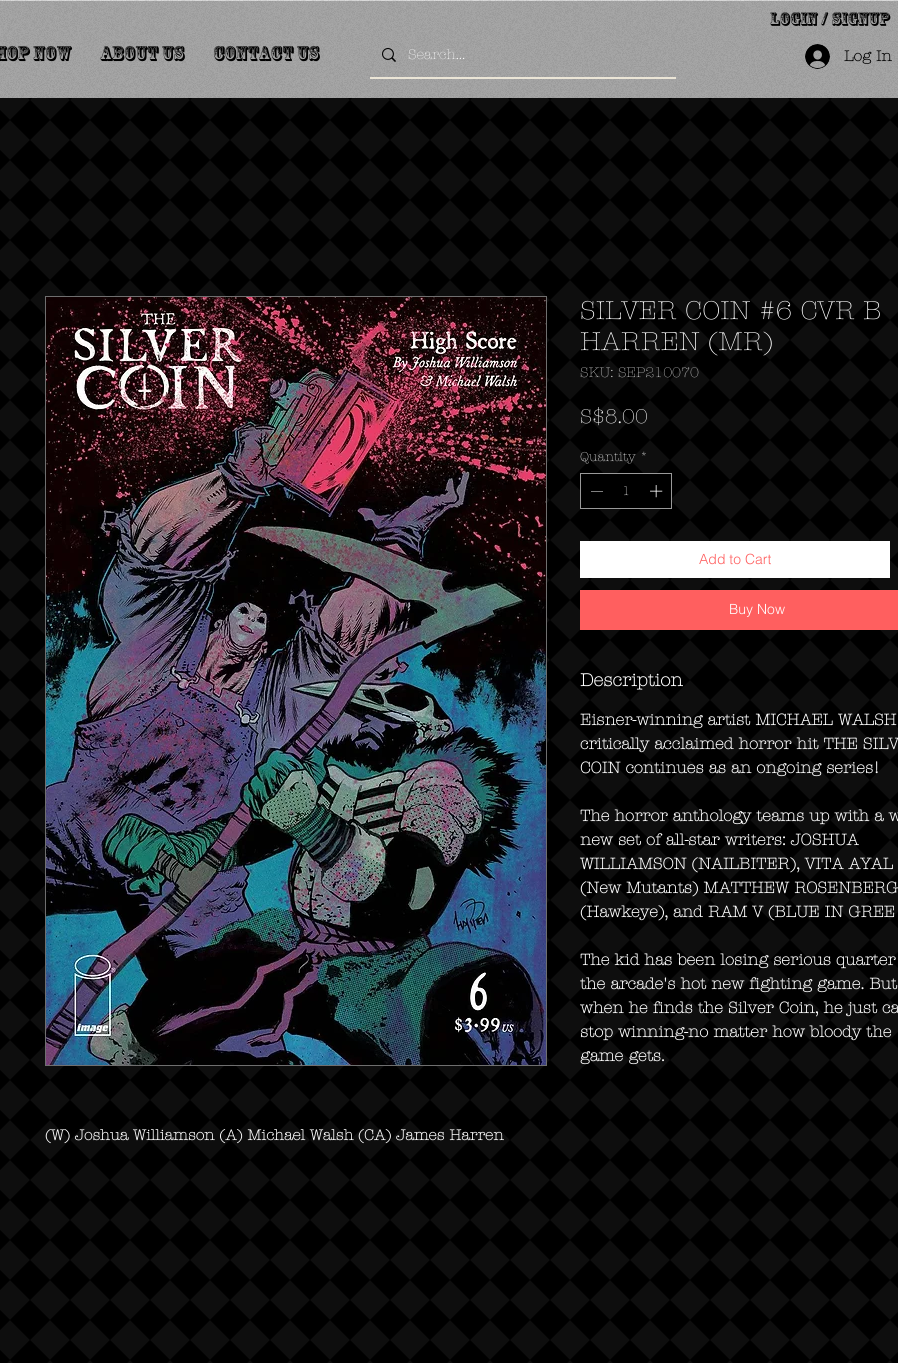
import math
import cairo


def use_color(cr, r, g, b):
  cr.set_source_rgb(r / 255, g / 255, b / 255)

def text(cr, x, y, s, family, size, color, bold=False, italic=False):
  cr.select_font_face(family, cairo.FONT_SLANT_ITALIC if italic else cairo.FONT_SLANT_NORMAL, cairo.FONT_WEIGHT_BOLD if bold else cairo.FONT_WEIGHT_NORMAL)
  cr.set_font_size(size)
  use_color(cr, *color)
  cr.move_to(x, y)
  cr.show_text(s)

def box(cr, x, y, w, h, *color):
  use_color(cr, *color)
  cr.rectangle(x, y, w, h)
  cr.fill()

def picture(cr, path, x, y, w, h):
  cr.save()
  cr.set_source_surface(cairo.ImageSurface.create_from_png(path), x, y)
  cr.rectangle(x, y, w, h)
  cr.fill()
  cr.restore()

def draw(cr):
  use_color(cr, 0, 0, 0)
  cr.paint()
  box(cr, 0, 1, 898, 97, 165, 165, 165)
  box(cr, 0, 0, 898, 1, 218, 218, 218)
  picture(cr, "img_01.png", 0, 0, 898, 98)
  box(cr, 370, 77, 306, 2, 235, 229, 214)
  picture(cr, "img_02.png", 382, 48, 14, 14)
  picture(cr, "img_03.png", 805, 44, 25, 25)
  picture(cr, "img_06.png", 0, 98, 898, 1265)
  use_color(cr, 0, 0, 0)
  cr.rectangle(580.5, 473.5, 91, 35)
  cr.fill_preserve()
  use_color(cr, 153, 153, 153)
  cr.set_line_width(1)
  cr.stroke()
  use_color(cr, 255, 255, 255)
  cr.set_fill_rule(cairo.FILL_RULE_EVEN_ODD)
  cr.new_path()
  cr.move_to(603, 491)
  cr.line_to(603, 491.5)
  cr.line_to(591, 491.5)
  cr.line_to(591, 491)
  cr.close_path()
  cr.fill()
  picture(cr, "img_04.png", 650, 485, 13, 13)
  box(cr, 580, 541, 310, 37, 255, 255, 255)
  box(cr, 580, 590, 318, 40, 255, 95, 95)
  cr.rectangle(45.5, 296.5, 501, 769)
  use_color(cr, 111, 111, 111)
  cr.stroke()
  picture(cr, "img_05.png", 46, 297, 500, 768)
  text(cr, 770, 24, "Login / Signup", "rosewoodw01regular", 18, (0, 0, 0))
  text(cr, -6, 59, "hop Now", "rosewoodw01regular", 20, (0, 0, 0))
  text(cr, 100, 59, "About Us", "rosewoodw01regular", 20, (0, 0, 0))
  text(cr, 213, 59, "Contact Us", "rosewoodw01regular", 20, (0, 0, 0))
  text(cr, 408, 59, "Search...", "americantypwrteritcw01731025 Light", 14, (255, 255, 255))
  text(cr, 844, 61, "Log In", "americantypwrteritcw01731025", 15, (0, 0, 0), bold=True)
  text(cr, 580, 319, "SILVER COIN #6 CVR B", "americantypwrteritcw01731025 Light", 26, (255, 255, 255))
  text(cr, 580, 350, "HARREN (MR)", "americantypwrteritcw01731025 Light", 26, (255, 255, 255))
  text(cr, 580, 377, "SKU: SEP210070", "americantypwrteritcw01731025 Light", 14, (219, 219, 219))
  text(cr, 580, 423, "S$8.00", "americantypwrteritcw01731025 Light", 20, (255, 255, 255))
  text(cr, 580, 461, "Quantity *", "americantypwrteritcw01731025 Light", 13, (255, 255, 255))
  text(cr, 622, 495, "1", "americantypwrteritcw01731025 Light", 13, (255, 255, 255))
  text(cr, 699, 564, "Add to Cart", "helvetica Light", 14, (255, 95, 95))
  text(cr, 729, 614, "Buy Now", "helvetica Light", 14, (255, 255, 255))
  text(cr, 580, 686, "Description", "americantypwrteritcw01731025", 18, (255, 255, 255), bold=True)
  text(cr, 580, 725, "Eisner-winning artist MICHAEL WALSH", "americantypwrteritcw01731025", 16, (255, 255, 255), bold=True)
  text(cr, 580, 749, "critically acclaimed horror hit THE SILV", "americantypwrteritcw01731025", 16, (255, 255, 255), bold=True)
  text(cr, 580, 773, "COIN continues as an ongoing series!", "americantypwrteritcw01731025", 16, (255, 255, 255), bold=True)
  text(cr, 580, 821, "The horror anthology teams up with a w", "americantypwrteritcw01731025", 16, (255, 255, 255), bold=True)
  text(cr, 580, 845, "new set of all-star writers: JOSHUA", "americantypwrteritcw01731025", 16, (255, 255, 255), bold=True)
  text(cr, 580, 869, "WILLIAMSON (NAILBITER), VITA AYAL", "americantypwrteritcw01731025", 16, (255, 255, 255), bold=True)
  text(cr, 580, 893, "(New Mutants) MATTHEW ROSENBERG", "americantypwrteritcw01731025", 16, (255, 255, 255), bold=True)
  text(cr, 580, 917, "(Hawkeye), and RAM V (BLUE IN GREE", "americantypwrteritcw01731025", 16, (255, 255, 255), bold=True)
  text(cr, 580, 965, "The kid has been losing serious quarter", "americantypwrteritcw01731025", 16, (255, 255, 255), bold=True)
  text(cr, 580, 989, "the arcade's hot new fighting game. But", "americantypwrteritcw01731025", 16, (255, 255, 255), bold=True)
  text(cr, 580, 1013, "when he finds the Silver Coin, he just ca", "americantypwrteritcw01731025", 16, (255, 255, 255), bold=True)
  text(cr, 580, 1037, "stop winning-no matter how bloody the", "americantypwrteritcw01731025", 16, (255, 255, 255), bold=True)
  text(cr, 580, 1061, "game gets.", "americantypwrteritcw01731025", 16, (255, 255, 255), bold=True)
  text(cr, 45, 1140, "(W) Joshua Williamson (A) Michael Walsh (CA) James Harren", "americantypwrteritcw01731025", 15, (255, 255, 255), bold=True)


surface = cairo.ImageSurface(cairo.FORMAT_RGB24, 898, 1363)
cr = cairo.Context(surface)
options = cairo.FontOptions()
options.set_hint_metrics(cairo.HINT_METRICS_OFF)
options.set_hint_style(cairo.HINT_STYLE_NONE)
cr.set_font_options(options)
cr.set_miter_limit(4)
draw(cr)
surface.write_to_png("out.png")
